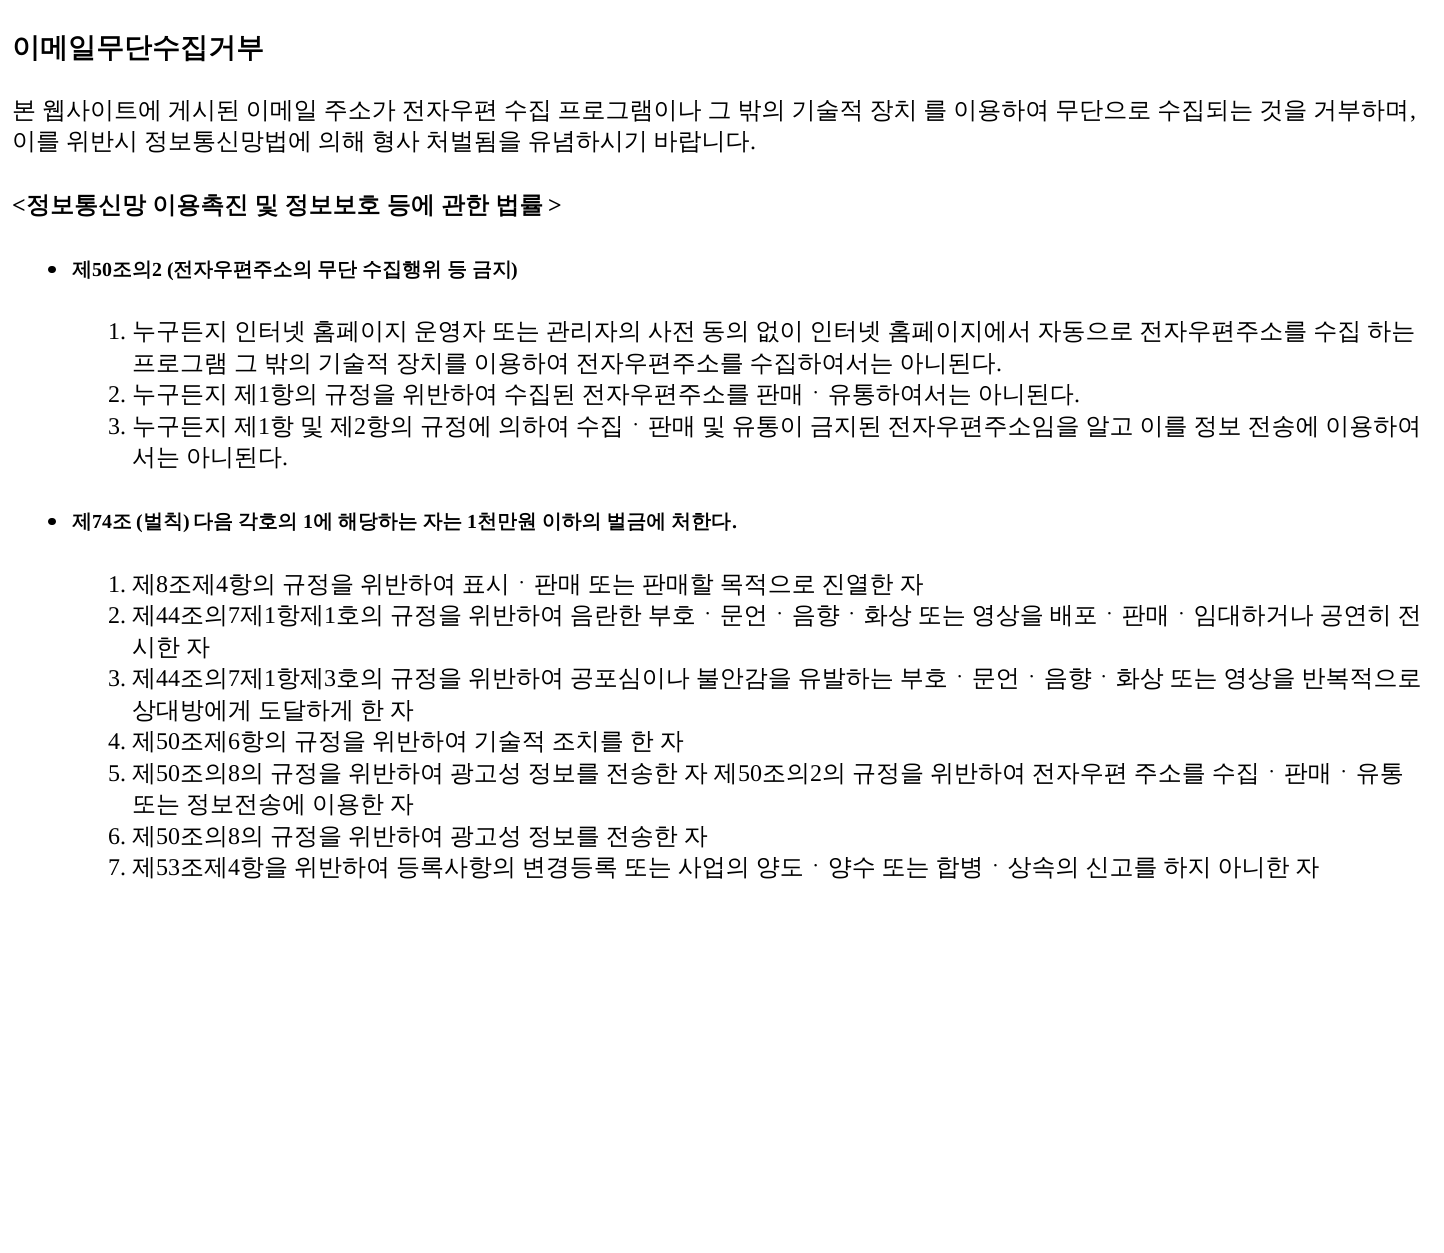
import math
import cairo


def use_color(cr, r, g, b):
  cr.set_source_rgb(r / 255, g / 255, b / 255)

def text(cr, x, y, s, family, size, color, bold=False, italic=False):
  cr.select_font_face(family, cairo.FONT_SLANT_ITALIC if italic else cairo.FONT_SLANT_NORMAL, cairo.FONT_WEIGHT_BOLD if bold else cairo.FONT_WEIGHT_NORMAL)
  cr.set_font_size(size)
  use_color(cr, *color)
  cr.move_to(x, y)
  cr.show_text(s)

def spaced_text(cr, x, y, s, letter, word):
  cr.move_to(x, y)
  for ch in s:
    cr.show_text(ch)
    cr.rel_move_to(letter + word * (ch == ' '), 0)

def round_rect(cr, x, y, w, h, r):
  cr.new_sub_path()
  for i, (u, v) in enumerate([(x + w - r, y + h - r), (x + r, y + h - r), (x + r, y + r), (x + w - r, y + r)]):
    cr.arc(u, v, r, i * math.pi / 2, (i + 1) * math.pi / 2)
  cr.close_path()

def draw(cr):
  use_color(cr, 255, 255, 255)
  cr.paint()
  use_color(cr, 0, 0, 0)
  round_rect(cr, 48, 266, 8, 7, 3.5)
  cr.fill()
  round_rect(cr, 48, 518, 8, 7, 3.5)
  cr.fill()
  text(cr, 12, 57, "이메일무단수집거부", "WenQuanYi Zen Hei", 28, (0, 0, 0), bold=True)
  cr.select_font_face("WenQuanYi Zen Hei Medium")
  cr.set_font_size(24)
  spaced_text(cr, 12, 118, "본 웹사이트에 게시된 이메일 주소가 전자우편 수집 프로그램이나 그 밖의 기술적 장치 를 이용하여 무단으로 수집되는 것을 거부하며", 0, -1.25)
  text(cr, 1410, 118, ",", "Liberation Serif", 24, (0, 0, 0))
  cr.select_font_face("WenQuanYi Zen Hei Medium")
  spaced_text(cr, 12, 149, "이를 위반시 정보통신망법에 의해 형사 처벌됨을 유념하시기 바랍니다", 0, -1.25)
  text(cr, 750, 149, ".", "Liberation Serif", 24, (0, 0, 0))
  text(cr, 12, 213, "<", "Liberation Serif", 24, (0, 0, 0), bold=True)
  cr.select_font_face("WenQuanYi Zen Hei", cairo.FONT_SLANT_NORMAL, cairo.FONT_WEIGHT_BOLD)
  spaced_text(cr, 26, 213, "정보통신망 이용촉진 및 정보보호 등에 관한 법률", 0, -1)
  text(cr, 548, 213, ">", "Liberation Serif", 24, (0, 0, 0), bold=True)
  text(cr, 72, 276, "제", "WenQuanYi Zen Hei", 19.9, (0, 0, 0), bold=True)
  text(cr, 92, 276, "50", "Liberation Serif", 19.9, (0, 0, 0), bold=True)
  text(cr, 112, 276, "조의", "WenQuanYi Zen Hei", 19.9, (0, 0, 0), bold=True)
  text(cr, 152, 276, "2 (", "Liberation Serif", 19.9, (0, 0, 0), bold=True)
  text(cr, 173, 276, "전자우편주소의", "WenQuanYi Zen Hei", 19.9, (0, 0, 0), bold=True)
  text(cr, 317, 276, "무단", "WenQuanYi Zen Hei", 19.9, (0, 0, 0), bold=True)
  text(cr, 362, 276, "수집행위", "WenQuanYi Zen Hei", 19.9, (0, 0, 0), bold=True)
  text(cr, 447, 276, "등", "WenQuanYi Zen Hei", 19.9, (0, 0, 0), bold=True)
  text(cr, 472, 276, "금지", "WenQuanYi Zen Hei", 19.9, (0, 0, 0), bold=True)
  text(cr, 511, 276, ")", "Liberation Serif", 19.9, (0, 0, 0), bold=True)
  text(cr, 108, 339, "1.", "Liberation Serif", 24, (0, 0, 0))
  cr.select_font_face("WenQuanYi Zen Hei Medium")
  spaced_text(cr, 132, 339, "누구든지 인터넷 홈페이지 운영자 또는 관리자의 사전 동의 없이 인터넷 홈페이지에서 자동으로 전자우편주소를 수집 하는", 0, -1.25)
  spaced_text(cr, 132, 371, "프로그램 그 밖의 기술적 장치를 이용하여 전자우편주소를 수집하여서는 아니된다", 0, -1.25)
  text(cr, 996, 371, ".", "Liberation Serif", 24, (0, 0, 0))
  text(cr, 108, 402, "2.", "Liberation Serif", 24, (0, 0, 0))
  cr.select_font_face("WenQuanYi Zen Hei Medium")
  spaced_text(cr, 132, 402, "누구든지 제", 0, -1.25)
  text(cr, 258, 402, "1", "Liberation Serif", 24, (0, 0, 0))
  cr.select_font_face("WenQuanYi Zen Hei Medium")
  spaced_text(cr, 270, 402, "항의 규정을 위반하여 수집된 전자우편주소를 판매ㆍ유통하여서는 아니된다", 0, -1.25)
  text(cr, 1074, 402, ".", "Liberation Serif", 24, (0, 0, 0))
  text(cr, 108, 434, "3.", "Liberation Serif", 24, (0, 0, 0))
  cr.select_font_face("WenQuanYi Zen Hei Medium")
  spaced_text(cr, 132, 434, "누구든지 제", 0, -1.25)
  text(cr, 258, 434, "1", "Liberation Serif", 24, (0, 0, 0))
  cr.select_font_face("WenQuanYi Zen Hei Medium")
  spaced_text(cr, 270, 434, "항 및 제", 0, -1.25)
  text(cr, 354, 434, "2", "Liberation Serif", 24, (0, 0, 0))
  cr.select_font_face("WenQuanYi Zen Hei Medium")
  spaced_text(cr, 366, 434, "항의 규정에 의하여 수집ㆍ판매 및 유통이 금지된 전자우편주소임을 알고 이를 정보 전송에 이용하여", 0, -1.25)
  spaced_text(cr, 132, 465, "서는 아니된다", 0, -1.25)
  text(cr, 282, 465, ".", "Liberation Serif", 24, (0, 0, 0))
  text(cr, 72, 528, "제", "WenQuanYi Zen Hei", 19.9, (0, 0, 0), bold=True)
  text(cr, 92, 528, "74", "Liberation Serif", 19.9, (0, 0, 0), bold=True)
  text(cr, 112, 528, "조", "WenQuanYi Zen Hei", 19.9, (0, 0, 0), bold=True)
  text(cr, 136, 528, "(", "Liberation Serif", 19.9, (0, 0, 0), bold=True)
  text(cr, 143, 528, "벌칙", "WenQuanYi Zen Hei", 19.9, (0, 0, 0), bold=True)
  text(cr, 183, 528, ")", "Liberation Serif", 19.9, (0, 0, 0), bold=True)
  cr.select_font_face("WenQuanYi Zen Hei", cairo.FONT_SLANT_NORMAL, cairo.FONT_WEIGHT_BOLD)
  spaced_text(cr, 193, 528, "다음 각호의", 0, -1)
  text(cr, 303, 528, "1", "Liberation Serif", 19.9, (0, 0, 0), bold=True)
  cr.select_font_face("WenQuanYi Zen Hei", cairo.FONT_SLANT_NORMAL, cairo.FONT_WEIGHT_BOLD)
  spaced_text(cr, 313, 528, "에 해당하는 자는", 0, -1)
  text(cr, 467, 528, "1", "Liberation Serif", 19.9, (0, 0, 0), bold=True)
  cr.select_font_face("WenQuanYi Zen Hei", cairo.FONT_SLANT_NORMAL, cairo.FONT_WEIGHT_BOLD)
  spaced_text(cr, 477, 528, "천만원 이하의 벌금에 처한다", 0, -1)
  text(cr, 732, 528, ".", "Liberation Serif", 19.9, (0, 0, 0), bold=True)
  text(cr, 108, 592, "1.", "Liberation Serif", 24, (0, 0, 0))
  text(cr, 132, 592, "제", "WenQuanYi Zen Hei Medium", 24, (0, 0, 0))
  text(cr, 156, 592, "8", "Liberation Serif", 24, (0, 0, 0))
  text(cr, 168, 592, "조제", "WenQuanYi Zen Hei Medium", 24, (0, 0, 0))
  text(cr, 216, 592, "4", "Liberation Serif", 24, (0, 0, 0))
  cr.select_font_face("WenQuanYi Zen Hei Medium")
  spaced_text(cr, 228, 592, "항의 규정을 위반하여 표시ㆍ판매 또는 판매할 목적으로 진열한 자", 0, -1.25)
  text(cr, 108, 623, "2.", "Liberation Serif", 24, (0, 0, 0))
  text(cr, 132, 623, "제", "WenQuanYi Zen Hei Medium", 24, (0, 0, 0))
  text(cr, 156, 623, "44", "Liberation Serif", 24, (0, 0, 0))
  text(cr, 180, 623, "조의", "WenQuanYi Zen Hei Medium", 24, (0, 0, 0))
  text(cr, 228, 623, "7", "Liberation Serif", 24, (0, 0, 0))
  text(cr, 240, 623, "제", "WenQuanYi Zen Hei Medium", 24, (0, 0, 0))
  text(cr, 264, 623, "1", "Liberation Serif", 24, (0, 0, 0))
  text(cr, 276, 623, "항제", "WenQuanYi Zen Hei Medium", 24, (0, 0, 0))
  text(cr, 324, 623, "1", "Liberation Serif", 24, (0, 0, 0))
  cr.select_font_face("WenQuanYi Zen Hei Medium")
  spaced_text(cr, 336, 623, "호의 규정을 위반하여 음란한 부호ㆍ문언ㆍ음향ㆍ화상 또는 영상을 배포ㆍ판매ㆍ임대하거나 공연히 전", 0, -1.25)
  spaced_text(cr, 132, 655, "시한 자", 0, -1.25)
  text(cr, 108, 686, "3.", "Liberation Serif", 24, (0, 0, 0))
  text(cr, 132, 686, "제", "WenQuanYi Zen Hei Medium", 24, (0, 0, 0))
  text(cr, 156, 686, "44", "Liberation Serif", 24, (0, 0, 0))
  text(cr, 180, 686, "조의", "WenQuanYi Zen Hei Medium", 24, (0, 0, 0))
  text(cr, 228, 686, "7", "Liberation Serif", 24, (0, 0, 0))
  text(cr, 240, 686, "제", "WenQuanYi Zen Hei Medium", 24, (0, 0, 0))
  text(cr, 264, 686, "1", "Liberation Serif", 24, (0, 0, 0))
  text(cr, 276, 686, "항제", "WenQuanYi Zen Hei Medium", 24, (0, 0, 0))
  text(cr, 324, 686, "3", "Liberation Serif", 24, (0, 0, 0))
  cr.select_font_face("WenQuanYi Zen Hei Medium")
  spaced_text(cr, 336, 686, "호의 규정을 위반하여 공포심이나 불안감을 유발하는 부호ㆍ문언ㆍ음향ㆍ화상 또는 영상을 반복적으로", 0, -1.25)
  spaced_text(cr, 132, 718, "상대방에게 도달하게 한 자", 0, -1.25)
  text(cr, 108, 749, "4.", "Liberation Serif", 24, (0, 0, 0))
  text(cr, 132, 749, "제", "WenQuanYi Zen Hei Medium", 24, (0, 0, 0))
  text(cr, 156, 749, "50", "Liberation Serif", 24, (0, 0, 0))
  text(cr, 180, 749, "조제", "WenQuanYi Zen Hei Medium", 24, (0, 0, 0))
  text(cr, 228, 749, "6", "Liberation Serif", 24, (0, 0, 0))
  cr.select_font_face("WenQuanYi Zen Hei Medium")
  spaced_text(cr, 240, 749, "항의 규정을 위반하여 기술적 조치를 한 자", 0, -1.25)
  text(cr, 108, 781, "5.", "Liberation Serif", 24, (0, 0, 0))
  text(cr, 132, 781, "제", "WenQuanYi Zen Hei Medium", 24, (0, 0, 0))
  text(cr, 156, 781, "50", "Liberation Serif", 24, (0, 0, 0))
  text(cr, 180, 781, "조의", "WenQuanYi Zen Hei Medium", 24, (0, 0, 0))
  text(cr, 228, 781, "8", "Liberation Serif", 24, (0, 0, 0))
  cr.select_font_face("WenQuanYi Zen Hei Medium")
  spaced_text(cr, 240, 781, "의 규정을 위반하여 광고성 정보를 전송한 자 제", 0, -1.25)
  text(cr, 738, 781, "50", "Liberation Serif", 24, (0, 0, 0))
  text(cr, 762, 781, "조의", "WenQuanYi Zen Hei Medium", 24, (0, 0, 0))
  text(cr, 810, 781, "2", "Liberation Serif", 24, (0, 0, 0))
  cr.select_font_face("WenQuanYi Zen Hei Medium")
  spaced_text(cr, 822, 781, "의 규정을 위반하여 전자우편 주소를 수집ㆍ판매ㆍ유통", 0, -1.25)
  spaced_text(cr, 132, 812, "또는 정보전송에 이용한 자", 0, -1.25)
  text(cr, 108, 844, "6.", "Liberation Serif", 24, (0, 0, 0))
  text(cr, 132, 844, "제", "WenQuanYi Zen Hei Medium", 24, (0, 0, 0))
  text(cr, 156, 844, "50", "Liberation Serif", 24, (0, 0, 0))
  text(cr, 180, 844, "조의", "WenQuanYi Zen Hei Medium", 24, (0, 0, 0))
  text(cr, 228, 844, "8", "Liberation Serif", 24, (0, 0, 0))
  cr.select_font_face("WenQuanYi Zen Hei Medium")
  spaced_text(cr, 240, 844, "의 규정을 위반하여 광고성 정보를 전송한 자", 0, -1.25)
  text(cr, 108, 875, "7.", "Liberation Serif", 24, (0, 0, 0))
  text(cr, 132, 875, "제", "WenQuanYi Zen Hei Medium", 24, (0, 0, 0))
  text(cr, 156, 875, "53", "Liberation Serif", 24, (0, 0, 0))
  text(cr, 180, 875, "조제", "WenQuanYi Zen Hei Medium", 24, (0, 0, 0))
  text(cr, 228, 875, "4", "Liberation Serif", 24, (0, 0, 0))
  cr.select_font_face("WenQuanYi Zen Hei Medium")
  spaced_text(cr, 240, 875, "항을 위반하여 등록사항의 변경등록 또는 사업의 양도ㆍ양수 또는 합병ㆍ상속의 신고를 하지 아니한 자", 0, -1.25)


surface = cairo.ImageSurface(cairo.FORMAT_RGB24, 1444, 1253)
cr = cairo.Context(surface)
options = cairo.FontOptions()
options.set_hint_metrics(cairo.HINT_METRICS_OFF)
options.set_hint_style(cairo.HINT_STYLE_NONE)
cr.set_font_options(options)
cr.set_miter_limit(4)
draw(cr)
surface.write_to_png("out.png")
